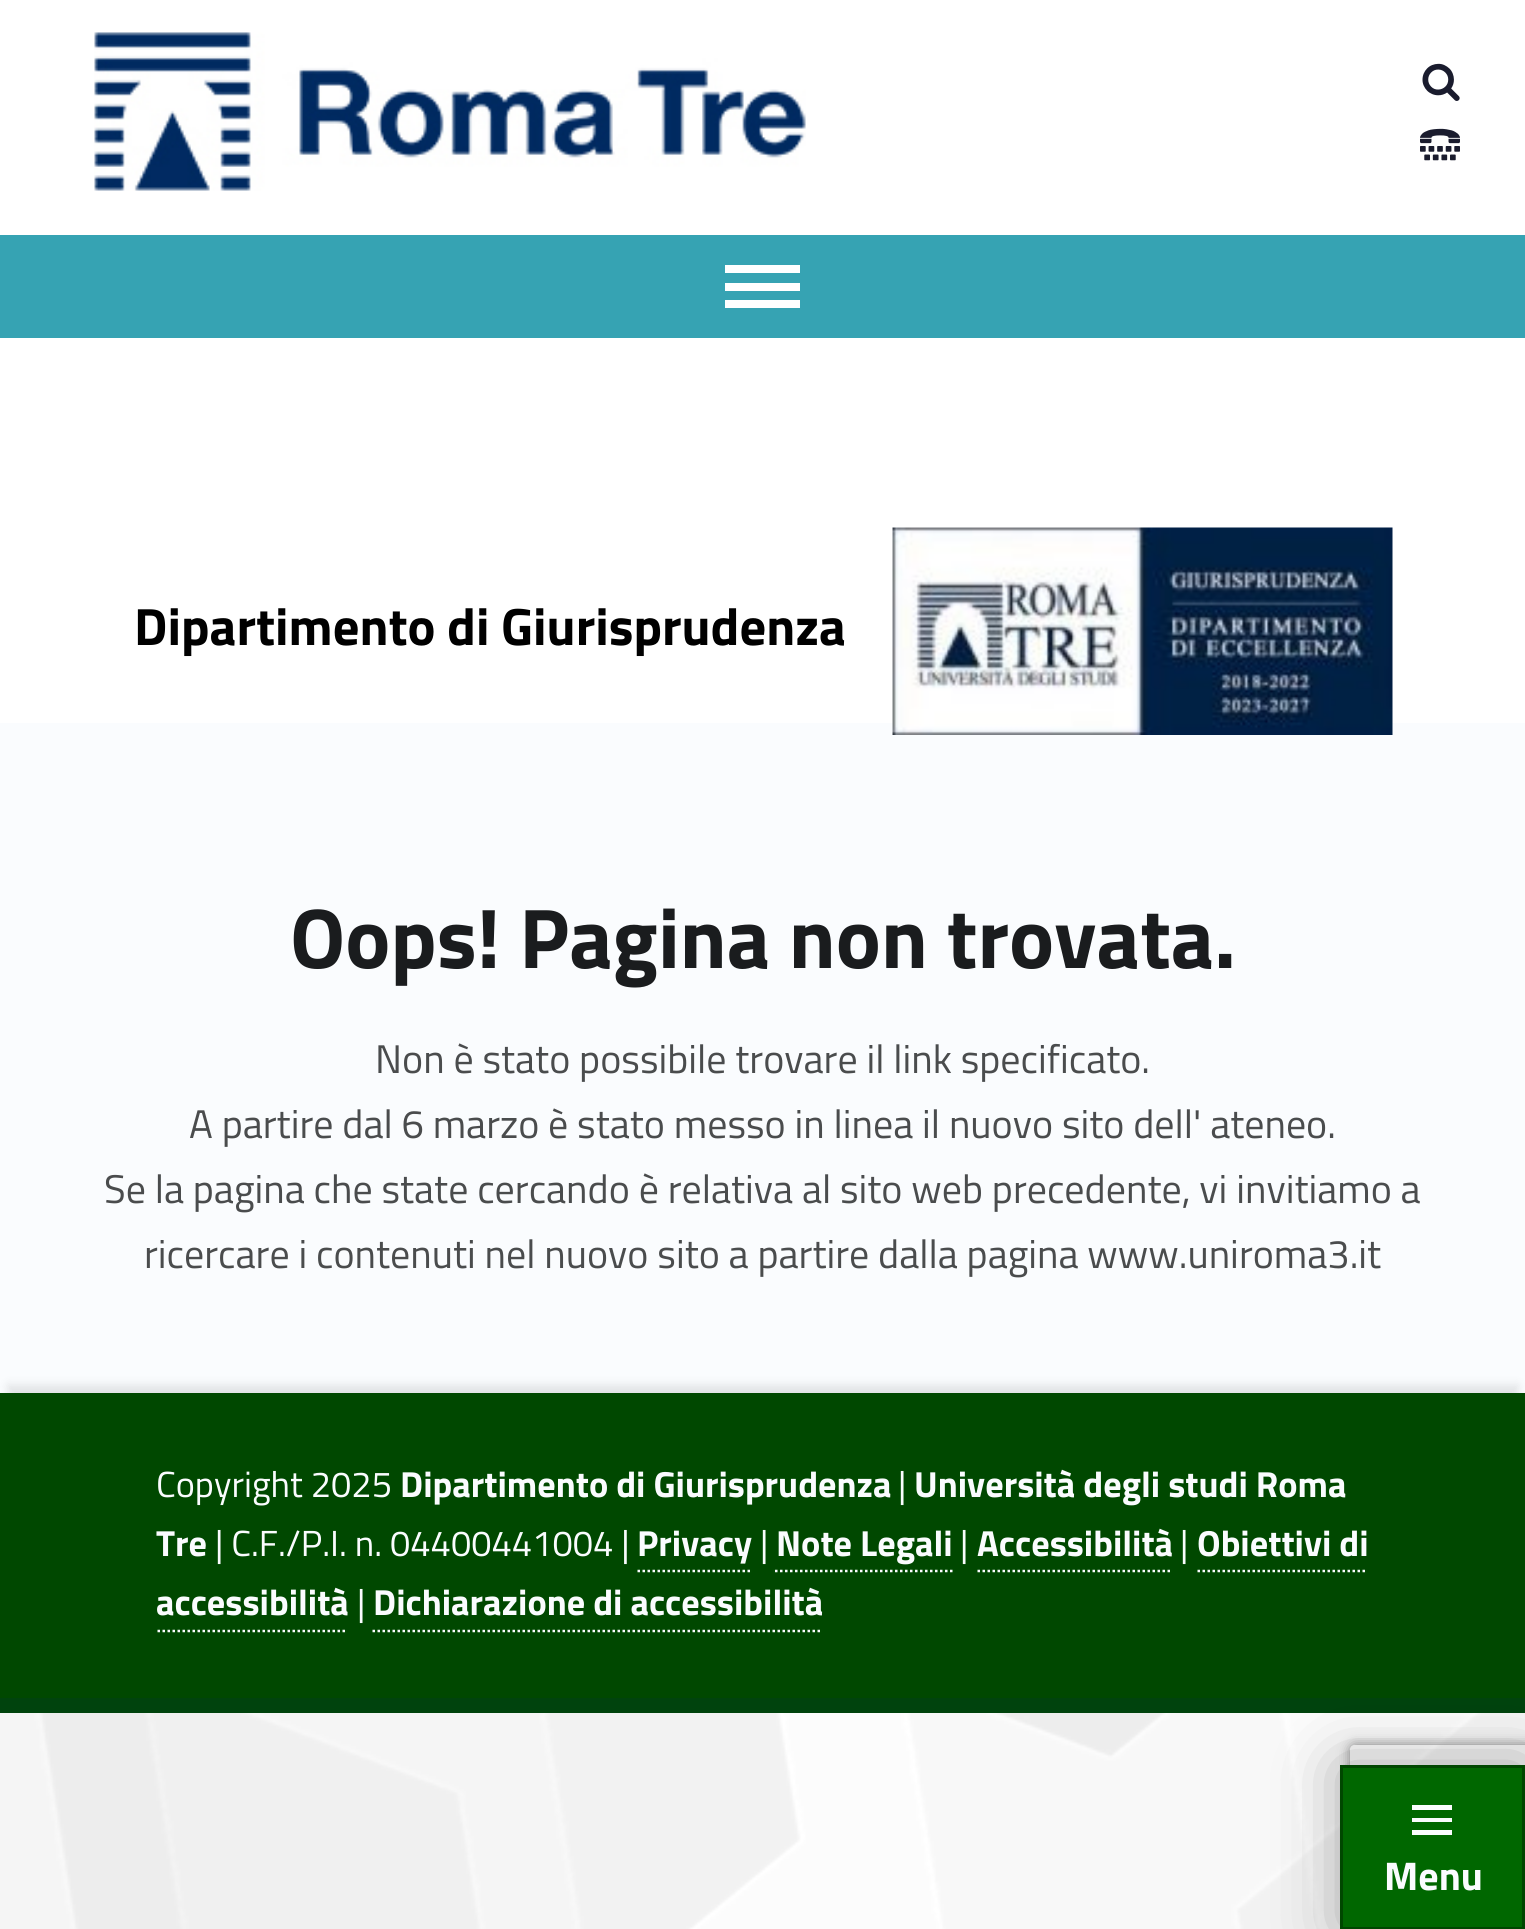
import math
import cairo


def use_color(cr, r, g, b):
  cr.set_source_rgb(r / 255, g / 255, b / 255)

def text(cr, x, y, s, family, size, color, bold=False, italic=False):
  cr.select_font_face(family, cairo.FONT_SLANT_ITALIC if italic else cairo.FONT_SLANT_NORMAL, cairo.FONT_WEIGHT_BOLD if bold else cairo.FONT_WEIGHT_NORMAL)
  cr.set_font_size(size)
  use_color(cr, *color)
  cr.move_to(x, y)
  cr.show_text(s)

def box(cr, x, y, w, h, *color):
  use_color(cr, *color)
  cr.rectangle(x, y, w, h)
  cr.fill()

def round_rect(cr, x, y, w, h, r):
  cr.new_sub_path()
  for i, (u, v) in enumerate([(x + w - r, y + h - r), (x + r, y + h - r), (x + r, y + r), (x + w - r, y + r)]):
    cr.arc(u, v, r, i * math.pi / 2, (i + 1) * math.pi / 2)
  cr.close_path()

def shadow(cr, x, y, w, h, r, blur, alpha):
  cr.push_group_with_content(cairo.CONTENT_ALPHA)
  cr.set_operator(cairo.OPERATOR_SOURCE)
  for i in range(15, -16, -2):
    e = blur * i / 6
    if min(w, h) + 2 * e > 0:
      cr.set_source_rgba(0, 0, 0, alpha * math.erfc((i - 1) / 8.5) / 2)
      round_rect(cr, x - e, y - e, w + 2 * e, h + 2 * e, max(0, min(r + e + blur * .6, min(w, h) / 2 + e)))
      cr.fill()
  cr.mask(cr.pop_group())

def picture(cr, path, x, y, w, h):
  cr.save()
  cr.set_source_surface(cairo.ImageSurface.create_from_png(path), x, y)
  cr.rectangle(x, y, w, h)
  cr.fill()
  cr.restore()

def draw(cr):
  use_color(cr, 255, 255, 255)
  cr.paint()
  picture(cr, "img_01.png", 0, 1713, 1525, 216)
  box(cr, 0, 235, 1525, 103, 54, 163, 179)
  picture(cr, "img_02.png", 1422, 63, 38, 38)
  picture(cr, "img_03.png", 1420, 128, 40, 33)
  box(cr, 725, 265, 75, 8, 255, 255, 255)
  box(cr, 725, 283, 75, 8, 255, 255, 255)
  box(cr, 725, 300, 75, 8, 255, 255, 255)
  picture(cr, "img_04.png", 94, 32, 712, 159)
  box(cr, 0, 723, 1525, 670, 250, 252, 254)
  picture(cr, "img_05.png", 892, 527, 501, 208)
  use_color(cr, 0, 0, 0)
  shadow(cr, 8, 1385, 1510, 305, 0, 5, 0.1)
  box(cr, 0, 1393, 1525, 305, 0, 72, 0)
  box(cr, 0, 1698, 1525, 15, 0, 67, 13)
  use_color(cr, 0, 0, 0)
  shadow(cr, 1340, 1765, 185, 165, 0, 32.5, 0.33)
  cr.save()
  cr.set_fill_rule(cairo.FILL_RULE_EVEN_ODD)
  cr.new_path()
  cr.move_to(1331, 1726)
  cr.line_to(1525, 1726)
  cr.line_to(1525, 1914)
  cr.line_to(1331, 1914)
  cr.close_path()
  cr.move_to(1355, 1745)
  cr.line_to(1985, 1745)
  cr.curve_to(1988, 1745, 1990, 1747, 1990, 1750)
  cr.line_to(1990, 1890)
  cr.curve_to(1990, 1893, 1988, 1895, 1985, 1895)
  cr.line_to(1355, 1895)
  cr.curve_to(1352, 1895, 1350, 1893, 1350, 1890)
  cr.line_to(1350, 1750)
  cr.curve_to(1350, 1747, 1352, 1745, 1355, 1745)
  cr.close_path()
  cr.clip()
  use_color(cr, 128, 128, 128)
  shadow(cr, 1350, 1745, 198, 150, 5, 6, 1)
  cr.restore()
  use_color(cr, 0, 103, 0)
  cr.rectangle(1341.5, 1766.5, 182, 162)
  cr.fill_preserve()
  use_color(cr, 0, 71, 0)
  cr.set_line_width(3)
  cr.stroke()
  use_color(cr, 250, 252, 254)
  cr.new_path()
  cr.move_to(1412, 1835)
  cr.line_to(1412, 1830)
  cr.line_to(1452, 1830)
  cr.line_to(1452, 1835)
  cr.close_path()
  cr.move_to(1412, 1805)
  cr.line_to(1452, 1805)
  cr.line_to(1452, 1810)
  cr.line_to(1412, 1810)
  cr.close_path()
  cr.move_to(1412, 1822)
  cr.line_to(1412, 1818)
  cr.line_to(1452, 1818)
  cr.line_to(1452, 1822)
  cr.close_path()
  cr.fill()
  cr.new_path()
  cr.move_to(637.5, 1571)
  cr.line_to(752.5, 1571)
  cr.set_line_width(2.5)
  cr.set_dash([2.5, 2.5])
  cr.stroke()
  cr.new_path()
  cr.move_to(775, 1571)
  cr.line_to(952.5, 1571)
  cr.stroke()
  cr.new_path()
  cr.move_to(977.5, 1571)
  cr.line_to(1172.5, 1571)
  cr.stroke()
  cr.new_path()
  cr.move_to(1197.5, 1571)
  cr.line_to(1367.5, 1571)
  cr.stroke()
  cr.new_path()
  cr.move_to(157.5, 1631)
  cr.line_to(347.5, 1631)
  cr.stroke()
  cr.new_path()
  cr.move_to(372.5, 1631)
  cr.line_to(822.5, 1631)
  cr.stroke()
  text(cr, 134, 645, "Dipartimento di Giurisprudenza", "Titillium Web", 52.5, (0, 0, 0), bold=True)
  text(cr, 1384, 1890, "Menu", "Titillium Web", 40, (250, 252, 254), bold=True)
  text(cr, 290, 968, "Oops! Pagina non trovata.", "Titillium Web", 84.9, (26, 28, 30), bold=True)
  text(cr, 375, 1073, "Non è stato possibile trovare il link specificato.", "Titillium Web", 40, (74, 76, 77))
  text(cr, 189, 1138, "A partire dal 6 marzo è stato messo in linea il nuovo sito dell' ateneo.", "Titillium Web", 40, (74, 76, 77))
  text(cr, 104, 1203, "Se la pagina che state cercando è relativa al sito web precedente, vi invitiamo a", "Titillium Web", 40, (74, 76, 77))
  text(cr, 144, 1268, "ricercare i contenuti nel nuovo sito a partire dalla pagina www.uniroma3.it", "Titillium Web", 40, (74, 76, 77))
  text(cr, 156, 1497, "Copyright 2025", "Titillium Web", 36.25, (250, 252, 254))
  text(cr, 400, 1497, "Dipartimento di Giurisprudenza", "Titillium Web", 36.25, (250, 252, 254), bold=True)
  text(cr, 898, 1497, "|", "Titillium Web", 36.25, (250, 252, 254))
  text(cr, 914, 1497, "Università degli studi Roma", "Titillium Web", 36.25, (250, 252, 254), bold=True)
  text(cr, 156, 1556, "Tre", "Titillium Web", 36.25, (250, 252, 254), bold=True)
  text(cr, 215, 1556, "| C.F./P.I. n. 04400441004 |", "Titillium Web", 36.25, (250, 252, 254))
  text(cr, 637, 1556, "Privacy", "Titillium Web", 36.25, (250, 252, 254), bold=True)
  text(cr, 760, 1556, "|", "Titillium Web", 36.25, (250, 252, 254))
  text(cr, 776, 1556, "Note Legali", "Titillium Web", 36.25, (250, 252, 254), bold=True)
  text(cr, 960, 1556, "|", "Titillium Web", 36.25, (250, 252, 254))
  text(cr, 977, 1556, "Accessibilità", "Titillium Web", 36.25, (250, 252, 254), bold=True)
  text(cr, 1180, 1556, "|", "Titillium Web", 36.25, (250, 252, 254))
  text(cr, 1197, 1556, "Obiettivi di", "Titillium Web", 36.25, (250, 252, 254), bold=True)
  text(cr, 156, 1615, "accessibilità", "Titillium Web", 36.25, (250, 252, 254), bold=True)
  text(cr, 357, 1615, "|", "Titillium Web", 36.25, (250, 252, 254))
  text(cr, 373, 1615, "Dichiarazione di accessibilità", "Titillium Web", 36.25, (250, 252, 254), bold=True)


surface = cairo.ImageSurface(cairo.FORMAT_RGB24, 1525, 1929)
cr = cairo.Context(surface)
options = cairo.FontOptions()
options.set_hint_metrics(cairo.HINT_METRICS_OFF)
options.set_hint_style(cairo.HINT_STYLE_NONE)
cr.set_font_options(options)
cr.set_miter_limit(4)
draw(cr)
surface.write_to_png("out.png")
